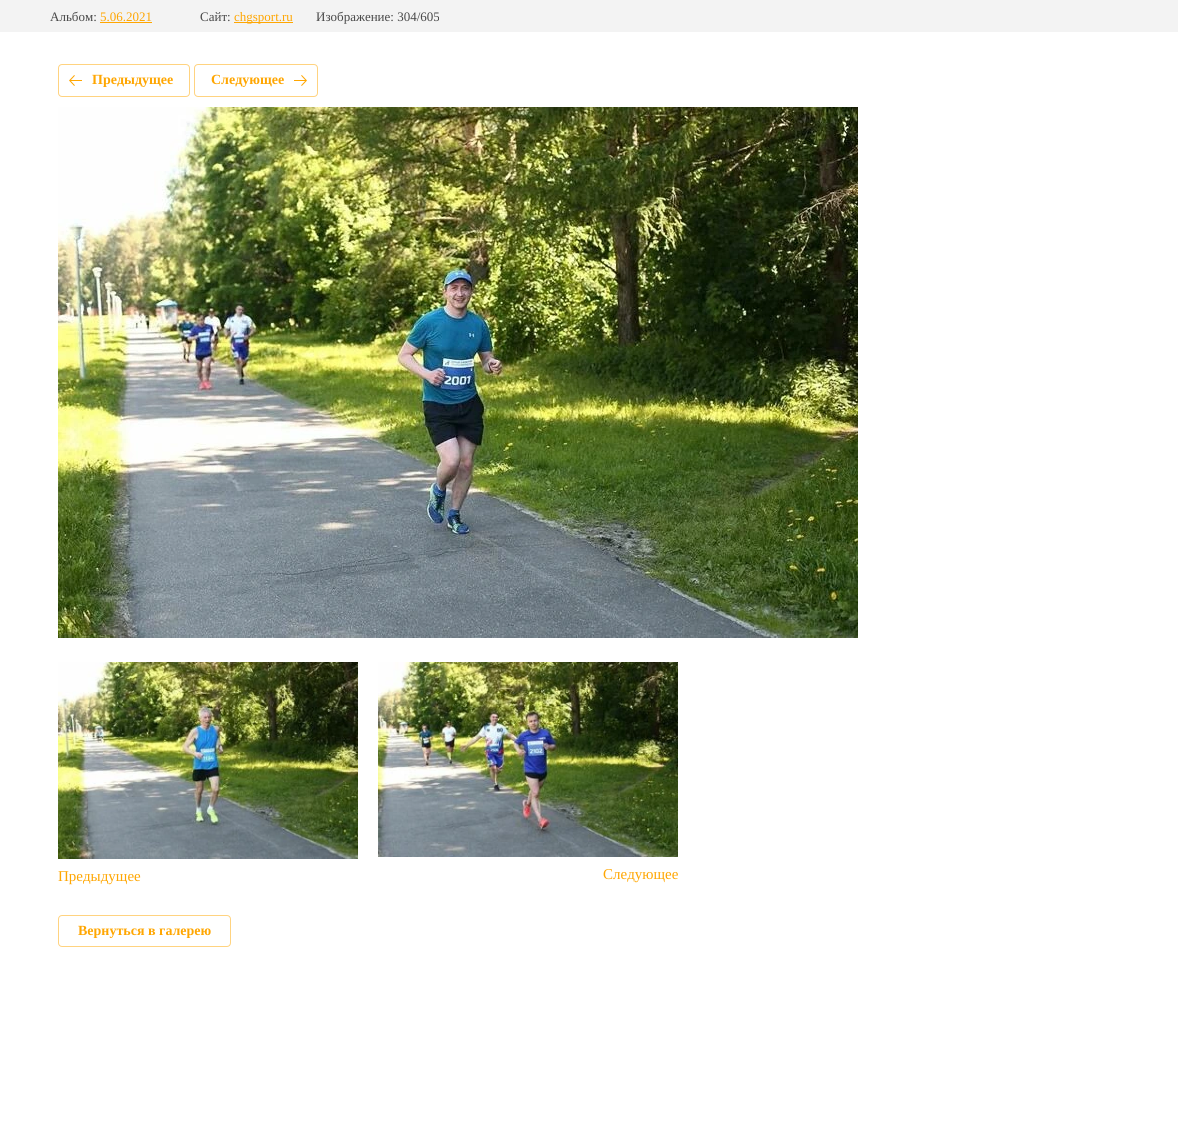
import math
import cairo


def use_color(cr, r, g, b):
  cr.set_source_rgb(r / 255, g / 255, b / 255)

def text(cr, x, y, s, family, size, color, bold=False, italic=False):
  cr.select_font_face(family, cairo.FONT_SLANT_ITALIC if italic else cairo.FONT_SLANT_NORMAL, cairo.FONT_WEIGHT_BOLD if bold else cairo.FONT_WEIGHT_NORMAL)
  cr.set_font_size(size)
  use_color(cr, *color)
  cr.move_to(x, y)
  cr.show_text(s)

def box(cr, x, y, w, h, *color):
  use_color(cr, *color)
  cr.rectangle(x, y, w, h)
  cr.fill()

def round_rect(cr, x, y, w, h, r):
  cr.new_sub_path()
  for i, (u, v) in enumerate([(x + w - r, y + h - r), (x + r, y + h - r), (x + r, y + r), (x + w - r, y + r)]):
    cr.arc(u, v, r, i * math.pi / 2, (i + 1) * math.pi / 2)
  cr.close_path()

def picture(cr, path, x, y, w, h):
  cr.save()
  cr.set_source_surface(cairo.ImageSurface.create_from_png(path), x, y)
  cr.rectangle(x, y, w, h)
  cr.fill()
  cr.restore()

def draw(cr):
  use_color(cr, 255, 255, 255)
  cr.paint()
  box(cr, 0, 0, 1178, 32, 243, 243, 243)
  box(cr, 100, 22, 52, 1, 255, 166, 1)
  box(cr, 234, 22, 59, 1, 255, 166, 1)
  round_rect(cr, 58.5, 64.5, 131, 32, 3.5)
  use_color(cr, 255, 211, 128)
  cr.set_line_width(1)
  cr.stroke()
  picture(cr, "img_01.png", 69, 75, 13, 11)
  round_rect(cr, 194.5, 64.5, 123, 32, 3.5)
  cr.stroke()
  picture(cr, "img_02.png", 294, 75, 13, 11)
  picture(cr, "img_03.png", 58, 107, 800, 531)
  picture(cr, "img_04.png", 58, 662, 300, 197)
  picture(cr, "img_05.png", 378, 662, 300, 195)
  round_rect(cr, 58.5, 915.5, 172, 31, 3.5)
  cr.stroke()
  text(cr, 50, 21, "Альбом:", "Liberation Serif", 13, (72, 72, 72))
  text(cr, 100, 21, "5.06.2021", "Liberation Serif", 13, (255, 166, 1))
  text(cr, 200, 21, "Сайт:", "Liberation Serif", 13, (72, 72, 72))
  text(cr, 234, 21, "chgsport.ru", "Liberation Serif", 13, (255, 166, 1))
  text(cr, 316, 21, "Изображение: 304/605", "Liberation Serif", 13, (72, 72, 72))
  text(cr, 92, 84, "Предыдущее", "Liberation Serif", 14, (255, 166, 1), bold=True)
  text(cr, 211, 84, "Следующее", "Liberation Serif", 14, (255, 166, 1), bold=True)
  text(cr, 58, 881, "Предыдущее", "Liberation Serif", 15, (255, 166, 1))
  text(cr, 603, 879, "Следующее", "Liberation Serif", 15, (255, 166, 1))
  text(cr, 78, 935, "Вернуться в галерею", "Liberation Serif", 14, (255, 166, 1), bold=True)


surface = cairo.ImageSurface(cairo.FORMAT_RGB24, 1178, 1139)
cr = cairo.Context(surface)
options = cairo.FontOptions()
options.set_hint_metrics(cairo.HINT_METRICS_OFF)
options.set_hint_style(cairo.HINT_STYLE_NONE)
cr.set_font_options(options)
cr.set_miter_limit(4)
draw(cr)
surface.write_to_png("out.png")
